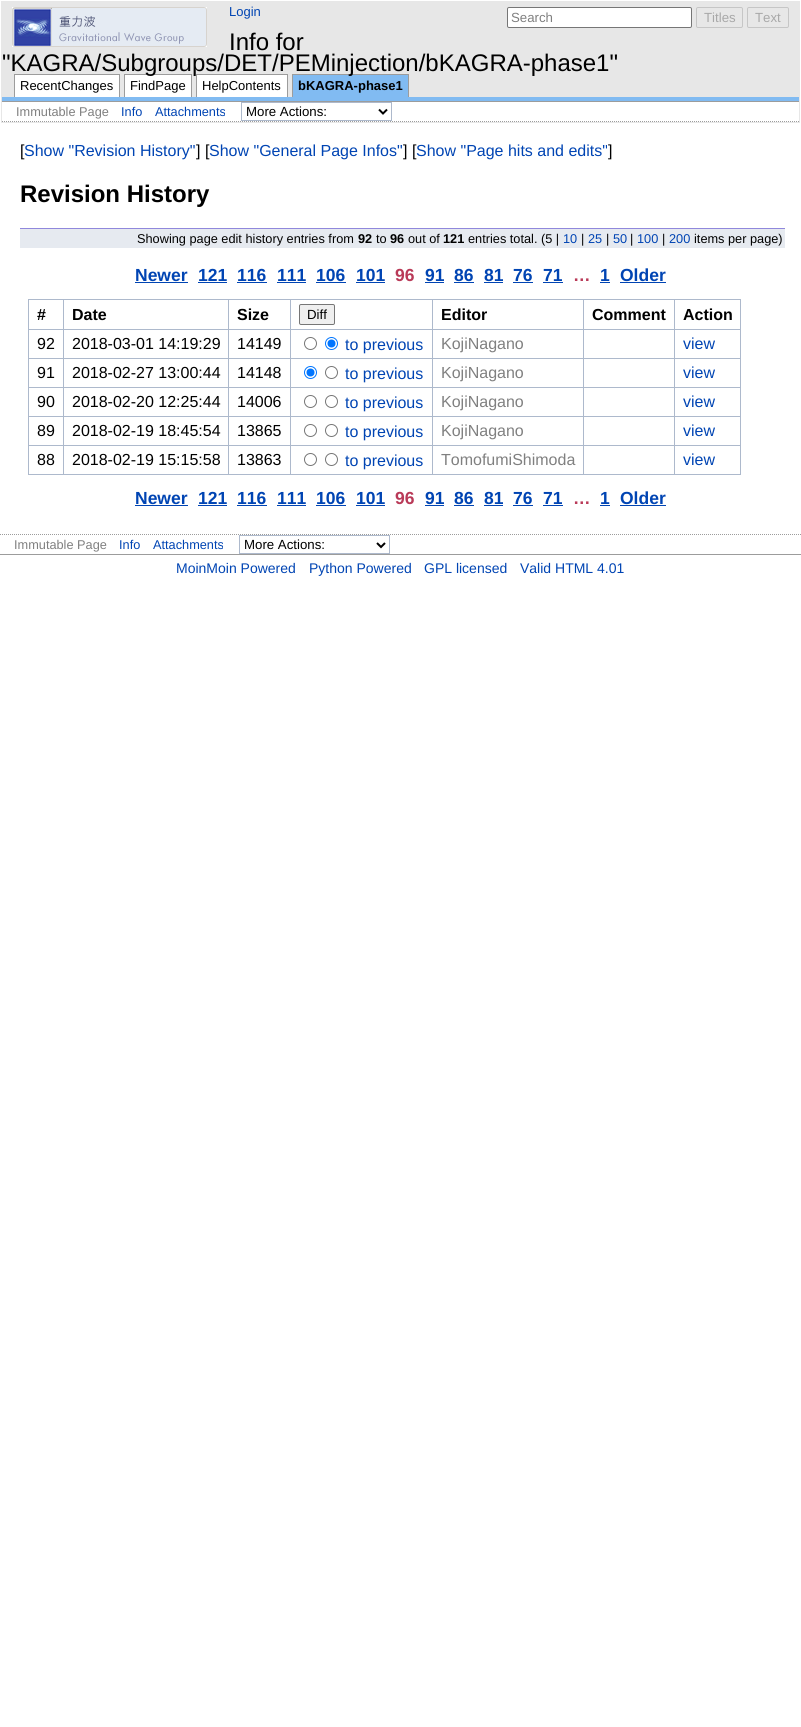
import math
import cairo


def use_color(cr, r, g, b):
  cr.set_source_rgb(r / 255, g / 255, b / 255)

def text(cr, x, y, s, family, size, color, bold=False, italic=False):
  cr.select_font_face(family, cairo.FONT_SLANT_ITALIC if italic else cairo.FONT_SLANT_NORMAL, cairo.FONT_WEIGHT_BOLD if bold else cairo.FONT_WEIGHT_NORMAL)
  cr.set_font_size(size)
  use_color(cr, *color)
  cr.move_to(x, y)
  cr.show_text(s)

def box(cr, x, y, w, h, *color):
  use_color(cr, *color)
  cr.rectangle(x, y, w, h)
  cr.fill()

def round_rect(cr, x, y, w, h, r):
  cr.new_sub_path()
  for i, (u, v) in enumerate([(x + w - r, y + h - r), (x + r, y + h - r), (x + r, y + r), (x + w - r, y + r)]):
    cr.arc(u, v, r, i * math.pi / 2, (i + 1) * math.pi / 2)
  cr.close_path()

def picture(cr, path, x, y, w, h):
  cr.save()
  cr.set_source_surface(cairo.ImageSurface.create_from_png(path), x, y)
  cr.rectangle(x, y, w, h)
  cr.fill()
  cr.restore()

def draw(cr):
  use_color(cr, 255, 255, 255)
  cr.paint()
  box(cr, 1, 1, 799, 122, 231, 231, 231)
  picture(cr, "img_01.png", 12, 7, 195, 40)
  use_color(cr, 255, 255, 255)
  round_rect(cr, 507.5, 7.5, 184, 20, 1.5)
  cr.fill_preserve()
  use_color(cr, 118, 118, 118)
  cr.set_line_width(1)
  cr.stroke()
  round_rect(cr, 696.5, 7.5, 46, 20, 1.5)
  use_color(cr, 198, 198, 198)
  cr.stroke()
  round_rect(cr, 747.5, 7.5, 41, 20, 1.5)
  cr.stroke()
  box(cr, 15, 75, 104, 22, 255, 255, 255)
  box(cr, 14, 74, 106, 1, 156, 156, 156)
  box(cr, 119, 74, 1, 23, 156, 156, 156)
  box(cr, 14, 74, 1, 23, 156, 156, 156)
  box(cr, 125, 75, 66, 22, 255, 255, 255)
  box(cr, 124, 74, 68, 1, 156, 156, 156)
  box(cr, 191, 74, 1, 23, 156, 156, 156)
  box(cr, 124, 74, 1, 23, 156, 156, 156)
  box(cr, 197, 75, 90, 22, 255, 255, 255)
  box(cr, 196, 74, 92, 1, 156, 156, 156)
  box(cr, 287, 74, 1, 23, 156, 156, 156)
  box(cr, 196, 74, 1, 23, 156, 156, 156)
  box(cr, 293, 75, 115, 22, 129, 187, 242)
  box(cr, 292, 74, 117, 1, 156, 156, 156)
  box(cr, 408, 74, 1, 23, 156, 156, 156)
  box(cr, 292, 74, 1, 23, 156, 156, 156)
  box(cr, 2, 97, 797, 4, 129, 187, 242)
  box(cr, 2, 101, 797, 1, 156, 156, 156)
  box(cr, 2, 102, 797, 20, 255, 255, 255)
  cr.new_path()
  cr.move_to(2, 121.5)
  cr.line_to(799, 121.5)
  use_color(cr, 156, 156, 156)
  cr.set_dash([1, 1])
  cr.stroke()
  cr.rectangle(241.5, 102.5, 150, 18)
  use_color(cr, 173, 185, 204)
  cr.set_dash([])
  cr.stroke()
  cr.new_path()
  cr.move_to(379, 109.5)
  cr.line_to(383, 113.5)
  cr.line_to(387, 109.5)
  use_color(cr, 0, 0, 0)
  cr.set_line_width(2)
  cr.stroke()
  box(cr, 20, 229, 765, 19, 230, 234, 240)
  box(cr, 20, 228, 765, 1, 144, 136, 220)
  box(cr, 135, 282, 53, 1, 0, 68, 179)
  box(cr, 198, 282, 29, 1, 0, 68, 179)
  box(cr, 237, 282, 30, 1, 0, 68, 179)
  box(cr, 277, 282, 29, 1, 0, 68, 179)
  box(cr, 316, 282, 30, 1, 0, 68, 179)
  box(cr, 356, 282, 29, 1, 0, 68, 179)
  box(cr, 425, 282, 19, 1, 0, 68, 179)
  box(cr, 454, 282, 20, 1, 0, 68, 179)
  box(cr, 484, 282, 19, 1, 0, 68, 179)
  box(cr, 513, 282, 20, 1, 0, 68, 179)
  box(cr, 543, 282, 20, 1, 0, 68, 179)
  box(cr, 600, 282, 10, 1, 0, 68, 179)
  box(cr, 620, 282, 46, 1, 0, 68, 179)
  box(cr, 674, 299, 67, 1, 173, 185, 204)
  box(cr, 674, 329, 67, 1, 173, 185, 204)
  box(cr, 674, 358, 67, 1, 173, 185, 204)
  box(cr, 674, 387, 67, 1, 173, 185, 204)
  box(cr, 674, 416, 67, 1, 173, 185, 204)
  box(cr, 674, 445, 67, 1, 173, 185, 204)
  box(cr, 740, 445, 1, 30, 173, 185, 204)
  box(cr, 674, 474, 67, 1, 173, 185, 204)
  box(cr, 674, 445, 1, 30, 173, 185, 204)
  box(cr, 583, 445, 92, 1, 173, 185, 204)
  box(cr, 674, 416, 1, 30, 173, 185, 204)
  box(cr, 583, 416, 92, 1, 173, 185, 204)
  box(cr, 674, 387, 1, 30, 173, 185, 204)
  box(cr, 583, 387, 92, 1, 173, 185, 204)
  box(cr, 674, 358, 1, 30, 173, 185, 204)
  box(cr, 583, 358, 92, 1, 173, 185, 204)
  box(cr, 674, 329, 1, 30, 173, 185, 204)
  box(cr, 583, 329, 92, 1, 173, 185, 204)
  box(cr, 674, 299, 1, 31, 173, 185, 204)
  box(cr, 583, 299, 92, 1, 173, 185, 204)
  box(cr, 583, 474, 92, 1, 173, 185, 204)
  box(cr, 583, 445, 1, 30, 173, 185, 204)
  box(cr, 432, 445, 152, 1, 173, 185, 204)
  box(cr, 583, 416, 1, 30, 173, 185, 204)
  box(cr, 432, 416, 152, 1, 173, 185, 204)
  box(cr, 583, 387, 1, 30, 173, 185, 204)
  box(cr, 432, 387, 152, 1, 173, 185, 204)
  box(cr, 583, 358, 1, 30, 173, 185, 204)
  box(cr, 432, 358, 152, 1, 173, 185, 204)
  box(cr, 583, 329, 1, 30, 173, 185, 204)
  box(cr, 432, 329, 152, 1, 173, 185, 204)
  box(cr, 583, 299, 1, 31, 173, 185, 204)
  box(cr, 432, 299, 152, 1, 173, 185, 204)
  box(cr, 432, 474, 152, 1, 173, 185, 204)
  box(cr, 432, 445, 1, 30, 173, 185, 204)
  box(cr, 290, 445, 143, 1, 173, 185, 204)
  box(cr, 432, 416, 1, 30, 173, 185, 204)
  box(cr, 290, 416, 143, 1, 173, 185, 204)
  box(cr, 432, 387, 1, 30, 173, 185, 204)
  box(cr, 290, 387, 143, 1, 173, 185, 204)
  box(cr, 432, 358, 1, 30, 173, 185, 204)
  box(cr, 290, 358, 143, 1, 173, 185, 204)
  box(cr, 432, 329, 1, 30, 173, 185, 204)
  box(cr, 290, 329, 143, 1, 173, 185, 204)
  box(cr, 432, 299, 1, 31, 173, 185, 204)
  box(cr, 290, 299, 143, 1, 173, 185, 204)
  box(cr, 290, 474, 143, 1, 173, 185, 204)
  box(cr, 290, 445, 1, 30, 173, 185, 204)
  box(cr, 228, 445, 63, 1, 173, 185, 204)
  box(cr, 290, 416, 1, 30, 173, 185, 204)
  box(cr, 228, 416, 63, 1, 173, 185, 204)
  box(cr, 290, 387, 1, 30, 173, 185, 204)
  box(cr, 228, 387, 63, 1, 173, 185, 204)
  box(cr, 290, 358, 1, 30, 173, 185, 204)
  box(cr, 228, 358, 63, 1, 173, 185, 204)
  box(cr, 290, 329, 1, 30, 173, 185, 204)
  box(cr, 228, 329, 63, 1, 173, 185, 204)
  box(cr, 290, 299, 1, 31, 173, 185, 204)
  box(cr, 228, 299, 63, 1, 173, 185, 204)
  box(cr, 228, 474, 63, 1, 173, 185, 204)
  box(cr, 228, 445, 1, 30, 173, 185, 204)
  box(cr, 63, 445, 166, 1, 173, 185, 204)
  box(cr, 228, 416, 1, 30, 173, 185, 204)
  box(cr, 63, 416, 166, 1, 173, 185, 204)
  box(cr, 228, 387, 1, 30, 173, 185, 204)
  box(cr, 63, 387, 166, 1, 173, 185, 204)
  box(cr, 228, 358, 1, 30, 173, 185, 204)
  box(cr, 63, 358, 166, 1, 173, 185, 204)
  box(cr, 228, 329, 1, 30, 173, 185, 204)
  box(cr, 63, 329, 166, 1, 173, 185, 204)
  box(cr, 228, 299, 1, 31, 173, 185, 204)
  box(cr, 63, 299, 166, 1, 173, 185, 204)
  box(cr, 63, 474, 166, 1, 173, 185, 204)
  box(cr, 63, 445, 1, 30, 173, 185, 204)
  box(cr, 28, 445, 36, 1, 173, 185, 204)
  box(cr, 63, 416, 1, 30, 173, 185, 204)
  box(cr, 28, 416, 36, 1, 173, 185, 204)
  box(cr, 63, 387, 1, 30, 173, 185, 204)
  box(cr, 28, 387, 36, 1, 173, 185, 204)
  box(cr, 63, 358, 1, 30, 173, 185, 204)
  box(cr, 28, 358, 36, 1, 173, 185, 204)
  box(cr, 63, 329, 1, 30, 173, 185, 204)
  box(cr, 28, 329, 36, 1, 173, 185, 204)
  box(cr, 63, 299, 1, 31, 173, 185, 204)
  box(cr, 28, 299, 36, 1, 173, 185, 204)
  box(cr, 28, 474, 36, 1, 173, 185, 204)
  box(cr, 28, 445, 1, 30, 173, 185, 204)
  box(cr, 28, 416, 1, 30, 173, 185, 204)
  box(cr, 28, 387, 1, 30, 173, 185, 204)
  box(cr, 28, 358, 1, 30, 173, 185, 204)
  box(cr, 28, 329, 1, 30, 173, 185, 204)
  box(cr, 28, 299, 1, 31, 173, 185, 204)
  use_color(cr, 239, 239, 239)
  round_rect(cr, 299.5, 304.5, 35, 20, 1.5)
  cr.fill_preserve()
  use_color(cr, 118, 118, 118)
  cr.set_line_width(1)
  cr.stroke()
  box(cr, 740, 416, 1, 30, 173, 185, 204)
  box(cr, 740, 387, 1, 30, 173, 185, 204)
  box(cr, 740, 358, 1, 30, 173, 185, 204)
  box(cr, 740, 329, 1, 30, 173, 185, 204)
  box(cr, 740, 299, 1, 31, 173, 185, 204)
  cr.arc(310.5, 343.5, 6, 0, 2 * math.pi)
  use_color(cr, 118, 118, 118)
  cr.stroke()
  cr.arc(331.5, 343.5, 6, 0, 2 * math.pi)
  use_color(cr, 0, 117, 255)
  cr.stroke()
  cr.arc(331.5, 343.5, 4, 0, 2 * math.pi)
  cr.fill()
  cr.arc(310.5, 372.5, 6, 0, 2 * math.pi)
  cr.stroke()
  cr.arc(310.5, 372.5, 4, 0, 2 * math.pi)
  cr.fill()
  cr.arc(331.5, 372.5, 6, 0, 2 * math.pi)
  use_color(cr, 118, 118, 118)
  cr.stroke()
  cr.arc(310.5, 401.5, 6, 0, 2 * math.pi)
  cr.stroke()
  cr.arc(331.5, 401.5, 6, 0, 2 * math.pi)
  cr.stroke()
  cr.arc(310.5, 430.5, 6, 0, 2 * math.pi)
  cr.stroke()
  cr.arc(331.5, 430.5, 6, 0, 2 * math.pi)
  cr.stroke()
  cr.arc(310.5, 459.5, 6, 0, 2 * math.pi)
  cr.stroke()
  cr.arc(331.5, 459.5, 6, 0, 2 * math.pi)
  cr.stroke()
  box(cr, 135, 505, 53, 1, 0, 68, 179)
  box(cr, 198, 505, 29, 1, 0, 68, 179)
  box(cr, 237, 505, 30, 1, 0, 68, 179)
  box(cr, 277, 505, 29, 1, 0, 68, 179)
  box(cr, 316, 505, 30, 1, 0, 68, 179)
  box(cr, 356, 505, 29, 1, 0, 68, 179)
  box(cr, 425, 505, 19, 1, 0, 68, 179)
  box(cr, 454, 505, 20, 1, 0, 68, 179)
  box(cr, 484, 505, 19, 1, 0, 68, 179)
  box(cr, 513, 505, 20, 1, 0, 68, 179)
  box(cr, 543, 505, 20, 1, 0, 68, 179)
  box(cr, 600, 505, 10, 1, 0, 68, 179)
  box(cr, 620, 505, 46, 1, 0, 68, 179)
  cr.new_path()
  cr.move_to(0, 534.5)
  cr.line_to(801, 534.5)
  use_color(cr, 156, 156, 156)
  cr.set_dash([1, 1])
  cr.stroke()
  box(cr, 0, 554, 801, 1, 156, 156, 156)
  cr.rectangle(239.5, 535.5, 150, 18)
  use_color(cr, 173, 185, 204)
  cr.set_dash([])
  cr.stroke()
  cr.new_path()
  cr.move_to(377, 543)
  cr.line_to(381, 547)
  cr.line_to(385, 543)
  use_color(cr, 0, 0, 0)
  cr.set_line_width(2)
  cr.stroke()
  text(cr, 229, 16, "Login", "Liberation Sans", 13, (0, 68, 179))
  text(cr, 511, 22, "Search", "Liberation Sans", 13.25, (128, 128, 128))
  text(cr, 704, 22, "Titles", "Liberation Sans", 13.25, (168, 168, 168))
  text(cr, 755, 22, "Text", "Liberation Sans", 13.25, (168, 168, 168))
  text(cr, 229, 50, "Info for", "Liberation Sans", 24, (0, 0, 0))
  text(cr, 2, 71, "\"KAGRA/Subgroups/DET/PEMinjection/bKAGRA-phase1\"", "Liberation Sans", 24, (0, 0, 0))
  text(cr, 20, 90, "RecentChanges", "Liberation Sans", 13, (0, 0, 0))
  text(cr, 130, 90, "FindPage", "Liberation Sans", 13, (0, 0, 0))
  text(cr, 202, 90, "HelpContents", "Liberation Sans", 13, (0, 0, 0))
  text(cr, 298, 90, "bKAGRA-phase1", "Liberation Sans", 13, (0, 0, 0), bold=True)
  text(cr, 16, 116, "Immutable Page", "Liberation Sans", 12.75, (128, 128, 128))
  text(cr, 121, 116, "Info", "Liberation Sans", 12.75, (0, 68, 179))
  text(cr, 155, 116, "Attachments", "Liberation Sans", 12.75, (0, 68, 179))
  text(cr, 246, 116, "More Actions:", "Liberation Sans", 13.25, (0, 0, 0))
  text(cr, 20, 156, "[", "Liberation Sans", 16, (0, 0, 0))
  text(cr, 24, 156, "Show \"Revision History\"", "Liberation Sans", 16, (0, 68, 179))
  text(cr, 196, 156, "] [", "Liberation Sans", 16, (0, 0, 0))
  text(cr, 209, 156, "Show \"General Page Infos\"", "Liberation Sans", 16, (0, 68, 179))
  text(cr, 403, 156, "] [", "Liberation Sans", 16, (0, 0, 0))
  text(cr, 416, 156, "Show \"Page hits and edits\"", "Liberation Sans", 16, (0, 68, 179))
  text(cr, 608, 156, "]", "Liberation Sans", 16, (0, 0, 0))
  text(cr, 20, 202, "Revision History", "Liberation Sans", 24, (0, 0, 0), bold=True)
  text(cr, 137, 243, "Showing page edit history entries from", "Liberation Sans", 12.75, (0, 0, 0))
  text(cr, 358, 243, "92", "Liberation Sans", 12.75, (0, 0, 0), bold=True)
  text(cr, 376, 243, "to", "Liberation Sans", 12.75, (0, 0, 0))
  text(cr, 390, 243, "96", "Liberation Sans", 12.75, (0, 0, 0), bold=True)
  text(cr, 408, 243, "out of", "Liberation Sans", 12.75, (0, 0, 0))
  text(cr, 443, 243, "121", "Liberation Sans", 12.75, (0, 0, 0), bold=True)
  text(cr, 468, 243, "entries total. (5 |", "Liberation Sans", 12.75, (0, 0, 0))
  text(cr, 563, 243, "10", "Liberation Sans", 12.75, (0, 68, 179))
  text(cr, 581, 243, "|", "Liberation Sans", 12.75, (0, 0, 0))
  text(cr, 588, 243, "25", "Liberation Sans", 12.75, (0, 68, 179))
  text(cr, 606, 243, "|", "Liberation Sans", 12.75, (0, 0, 0))
  text(cr, 613, 243, "50", "Liberation Sans", 12.75, (0, 68, 179))
  text(cr, 630, 243, "|", "Liberation Sans", 12.75, (0, 0, 0))
  text(cr, 637, 243, "100", "Liberation Sans", 12.75, (0, 68, 179))
  text(cr, 662, 243, "|", "Liberation Sans", 12.75, (0, 0, 0))
  text(cr, 669, 243, "200", "Liberation Sans", 12.75, (0, 68, 179))
  text(cr, 694, 243, "items per page)", "Liberation Sans", 12.75, (0, 0, 0))
  text(cr, 135, 281, "Newer", "Liberation Sans", 17.5, (0, 68, 179), bold=True)
  text(cr, 198, 281, "121", "Liberation Sans", 17.5, (0, 68, 179), bold=True)
  text(cr, 237, 281, "116", "Liberation Sans", 17.5, (0, 68, 179), bold=True)
  text(cr, 277, 281, "111", "Liberation Sans", 17.5, (0, 68, 179), bold=True)
  text(cr, 316, 281, "106", "Liberation Sans", 17.5, (0, 68, 179), bold=True)
  text(cr, 356, 281, "101", "Liberation Sans", 17.5, (0, 68, 179), bold=True)
  text(cr, 395, 281, "96", "Liberation Sans", 17.5, (185, 58, 88), bold=True)
  text(cr, 425, 281, "91", "Liberation Sans", 17.5, (0, 68, 179), bold=True)
  text(cr, 454, 281, "86", "Liberation Sans", 17.5, (0, 68, 179), bold=True)
  text(cr, 484, 281, "81", "Liberation Sans", 17.5, (0, 68, 179), bold=True)
  text(cr, 513, 281, "76", "Liberation Sans", 17.5, (0, 68, 179), bold=True)
  text(cr, 543, 281, "71", "Liberation Sans", 17.5, (0, 68, 179), bold=True)
  text(cr, 573, 281, "…", "Liberation Sans", 17.5, (185, 58, 88), bold=True)
  text(cr, 600, 281, "1", "Liberation Sans", 17.5, (0, 68, 179), bold=True)
  text(cr, 620, 281, "Older", "Liberation Sans", 17.5, (0, 68, 179), bold=True)
  text(cr, 37, 320, "#", "Liberation Sans", 16, (0, 0, 0), bold=True)
  text(cr, 72, 320, "Date", "Liberation Sans", 16, (0, 0, 0), bold=True)
  text(cr, 237, 320, "Size", "Liberation Sans", 16, (0, 0, 0), bold=True)
  text(cr, 307, 319, "Diff", "Liberation Sans", 13.25, (0, 0, 0))
  text(cr, 441, 320, "Editor", "Liberation Sans", 16, (0, 0, 0), bold=True)
  text(cr, 592, 320, "Comment", "Liberation Sans", 16, (0, 0, 0), bold=True)
  text(cr, 683, 320, "Action", "Liberation Sans", 16, (0, 0, 0), bold=True)
  text(cr, 37, 349, "92", "Liberation Sans", 16, (0, 0, 0))
  text(cr, 72, 349, "2018-03-01 14:19:29", "Liberation Sans", 16, (0, 0, 0))
  text(cr, 237, 349, "14149", "Liberation Sans", 16, (0, 0, 0))
  text(cr, 345, 350, "to previous", "Liberation Sans", 16, (0, 68, 179))
  text(cr, 441, 349, "KojiNagano", "Liberation Sans", 16, (128, 128, 128))
  text(cr, 683, 349, "view", "Liberation Sans", 16, (0, 68, 179))
  text(cr, 37, 378, "91", "Liberation Sans", 16, (0, 0, 0))
  text(cr, 72, 378, "2018-02-27 13:00:44", "Liberation Sans", 16, (0, 0, 0))
  text(cr, 237, 378, "14148", "Liberation Sans", 16, (0, 0, 0))
  text(cr, 345, 379, "to previous", "Liberation Sans", 16, (0, 68, 179))
  text(cr, 441, 378, "KojiNagano", "Liberation Sans", 16, (128, 128, 128))
  text(cr, 683, 378, "view", "Liberation Sans", 16, (0, 68, 179))
  text(cr, 37, 407, "90", "Liberation Sans", 16, (0, 0, 0))
  text(cr, 72, 407, "2018-02-20 12:25:44", "Liberation Sans", 16, (0, 0, 0))
  text(cr, 237, 407, "14006", "Liberation Sans", 16, (0, 0, 0))
  text(cr, 345, 408, "to previous", "Liberation Sans", 16, (0, 68, 179))
  text(cr, 441, 407, "KojiNagano", "Liberation Sans", 16, (128, 128, 128))
  text(cr, 683, 407, "view", "Liberation Sans", 16, (0, 68, 179))
  text(cr, 37, 436, "89", "Liberation Sans", 16, (0, 0, 0))
  text(cr, 72, 436, "2018-02-19 18:45:54", "Liberation Sans", 16, (0, 0, 0))
  text(cr, 237, 436, "13865", "Liberation Sans", 16, (0, 0, 0))
  text(cr, 345, 437, "to previous", "Liberation Sans", 16, (0, 68, 179))
  text(cr, 441, 436, "KojiNagano", "Liberation Sans", 16, (128, 128, 128))
  text(cr, 683, 436, "view", "Liberation Sans", 16, (0, 68, 179))
  text(cr, 37, 465, "88", "Liberation Sans", 16, (0, 0, 0))
  text(cr, 72, 465, "2018-02-19 15:15:58", "Liberation Sans", 16, (0, 0, 0))
  text(cr, 237, 465, "13863", "Liberation Sans", 16, (0, 0, 0))
  text(cr, 345, 466, "to previous", "Liberation Sans", 16, (0, 68, 179))
  text(cr, 441, 465, "TomofumiShimoda", "Liberation Sans", 16, (128, 128, 128))
  text(cr, 683, 465, "view", "Liberation Sans", 16, (0, 68, 179))
  text(cr, 135, 504, "Newer", "Liberation Sans", 17.5, (0, 68, 179), bold=True)
  text(cr, 198, 504, "121", "Liberation Sans", 17.5, (0, 68, 179), bold=True)
  text(cr, 237, 504, "116", "Liberation Sans", 17.5, (0, 68, 179), bold=True)
  text(cr, 277, 504, "111", "Liberation Sans", 17.5, (0, 68, 179), bold=True)
  text(cr, 316, 504, "106", "Liberation Sans", 17.5, (0, 68, 179), bold=True)
  text(cr, 356, 504, "101", "Liberation Sans", 17.5, (0, 68, 179), bold=True)
  text(cr, 395, 504, "96", "Liberation Sans", 17.5, (185, 58, 88), bold=True)
  text(cr, 425, 504, "91", "Liberation Sans", 17.5, (0, 68, 179), bold=True)
  text(cr, 454, 504, "86", "Liberation Sans", 17.5, (0, 68, 179), bold=True)
  text(cr, 484, 504, "81", "Liberation Sans", 17.5, (0, 68, 179), bold=True)
  text(cr, 513, 504, "76", "Liberation Sans", 17.5, (0, 68, 179), bold=True)
  text(cr, 543, 504, "71", "Liberation Sans", 17.5, (0, 68, 179), bold=True)
  text(cr, 573, 504, "…", "Liberation Sans", 17.5, (185, 58, 88), bold=True)
  text(cr, 600, 504, "1", "Liberation Sans", 17.5, (0, 68, 179), bold=True)
  text(cr, 620, 504, "Older", "Liberation Sans", 17.5, (0, 68, 179), bold=True)
  text(cr, 14, 549, "Immutable Page", "Liberation Sans", 12.75, (128, 128, 128))
  text(cr, 119, 549, "Info", "Liberation Sans", 12.75, (0, 68, 179))
  text(cr, 153, 549, "Attachments", "Liberation Sans", 12.75, (0, 68, 179))
  text(cr, 244, 549, "More Actions:", "Liberation Sans", 13.25, (0, 0, 0))
  text(cr, 176, 573, "MoinMoin Powered", "Liberation Sans", 14, (0, 68, 179))
  text(cr, 309, 573, "Python Powered", "Liberation Sans", 14, (0, 68, 179))
  text(cr, 424, 573, "GPL licensed", "Liberation Sans", 14, (0, 68, 179))
  text(cr, 520, 573, "Valid HTML 4.01", "Liberation Sans", 14, (0, 68, 179))


surface = cairo.ImageSurface(cairo.FORMAT_RGB24, 801, 1727)
cr = cairo.Context(surface)
options = cairo.FontOptions()
options.set_hint_metrics(cairo.HINT_METRICS_OFF)
options.set_hint_style(cairo.HINT_STYLE_NONE)
cr.set_font_options(options)
cr.set_miter_limit(4)
draw(cr)
surface.write_to_png("out.png")
